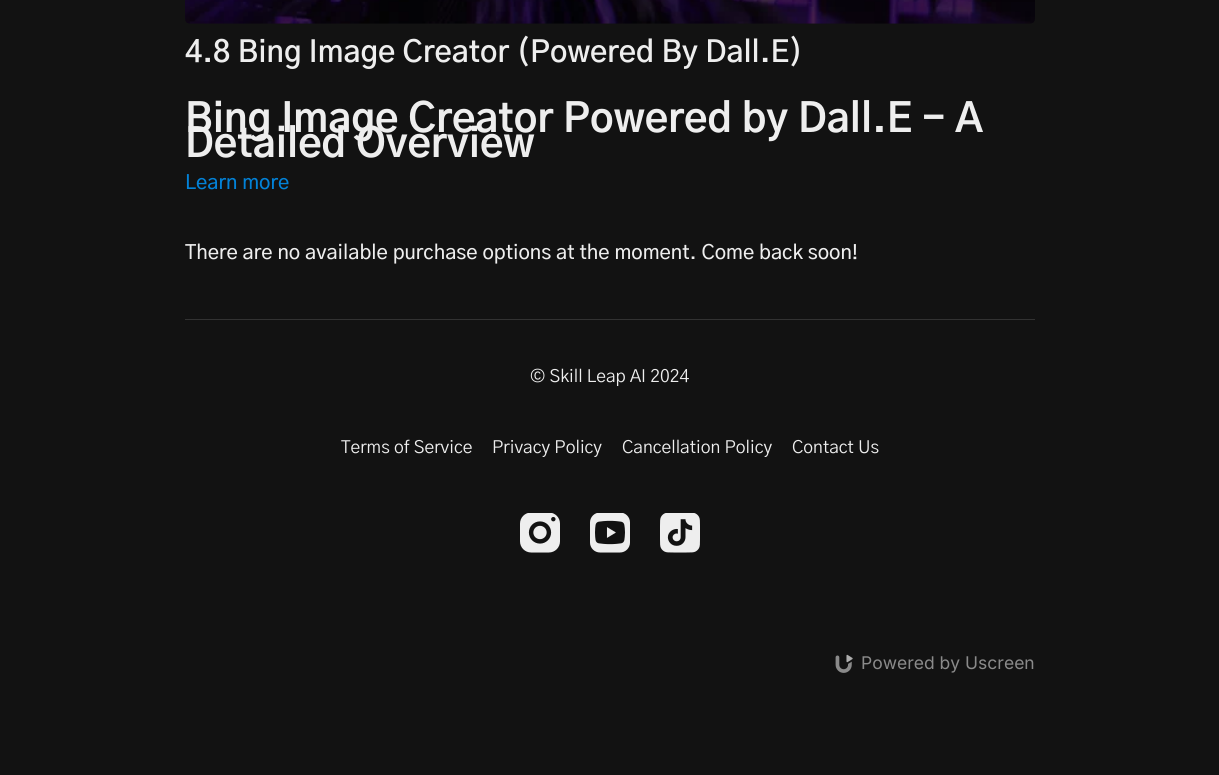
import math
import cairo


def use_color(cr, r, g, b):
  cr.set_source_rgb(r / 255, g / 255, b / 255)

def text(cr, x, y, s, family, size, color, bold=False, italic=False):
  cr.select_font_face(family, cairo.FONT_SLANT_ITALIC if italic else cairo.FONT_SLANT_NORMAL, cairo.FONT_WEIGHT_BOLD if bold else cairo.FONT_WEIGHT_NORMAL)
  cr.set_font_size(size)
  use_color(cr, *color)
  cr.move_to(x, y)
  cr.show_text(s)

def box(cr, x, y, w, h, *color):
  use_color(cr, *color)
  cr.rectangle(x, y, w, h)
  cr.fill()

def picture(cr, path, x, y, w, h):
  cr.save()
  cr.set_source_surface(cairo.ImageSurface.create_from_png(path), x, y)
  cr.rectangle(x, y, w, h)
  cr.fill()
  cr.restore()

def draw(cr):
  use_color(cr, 18, 18, 18)
  cr.paint()
  picture(cr, "img_01.png", 185, 0, 850, 24)
  box(cr, 185, 319, 850, 1, 50, 50, 50)
  picture(cr, "img_02.png", 520, 513, 40, 40)
  picture(cr, "img_03.png", 590, 513, 40, 40)
  picture(cr, "img_04.png", 660, 513, 40, 40)
  picture(cr, "img_05.png", 835, 654, 18, 19)
  text(cr, 185, 62, "4.8 Bing Image Creator (Powered By Dall.E)", "Gothic A1 SemiBold", 30, (238, 238, 238))
  text(cr, 185, 132, "Bing Image Creator Powered by Dall.E - A", "Gothic A1", 40, (238, 238, 238), bold=True)
  text(cr, 185, 157, "Detailed Overview", "Gothic A1", 40, (238, 238, 238), bold=True)
  text(cr, 185, 189, "Learn more", "Gothic A1 Medium", 20, (2, 130, 216))
  text(cr, 185, 259, "There are no available purchase options at the moment. Come back soon!", "Gothic A1 Medium", 20, (238, 238, 238))
  text(cr, 530, 382, "© Skill Leap AI 2024", "Gothic A1", 17.5, (238, 238, 238))
  text(cr, 341, 453, "Terms of Service", "Gothic A1", 17.5, (238, 238, 238))
  text(cr, 492, 453, "Privacy Policy", "Gothic A1", 17.5, (238, 238, 238))
  text(cr, 622, 453, "Cancellation Policy", "Gothic A1", 17.5, (238, 238, 238))
  text(cr, 792, 453, "Contact Us", "Gothic A1", 17.5, (238, 238, 238))
  text(cr, 861, 669, "Powered by Uscreen", "Inter", 17.5, (138, 138, 138))


surface = cairo.ImageSurface(cairo.FORMAT_RGB24, 1219, 775)
cr = cairo.Context(surface)
options = cairo.FontOptions()
options.set_hint_metrics(cairo.HINT_METRICS_OFF)
options.set_hint_style(cairo.HINT_STYLE_NONE)
cr.set_font_options(options)
cr.set_miter_limit(4)
draw(cr)
surface.write_to_png("out.png")
